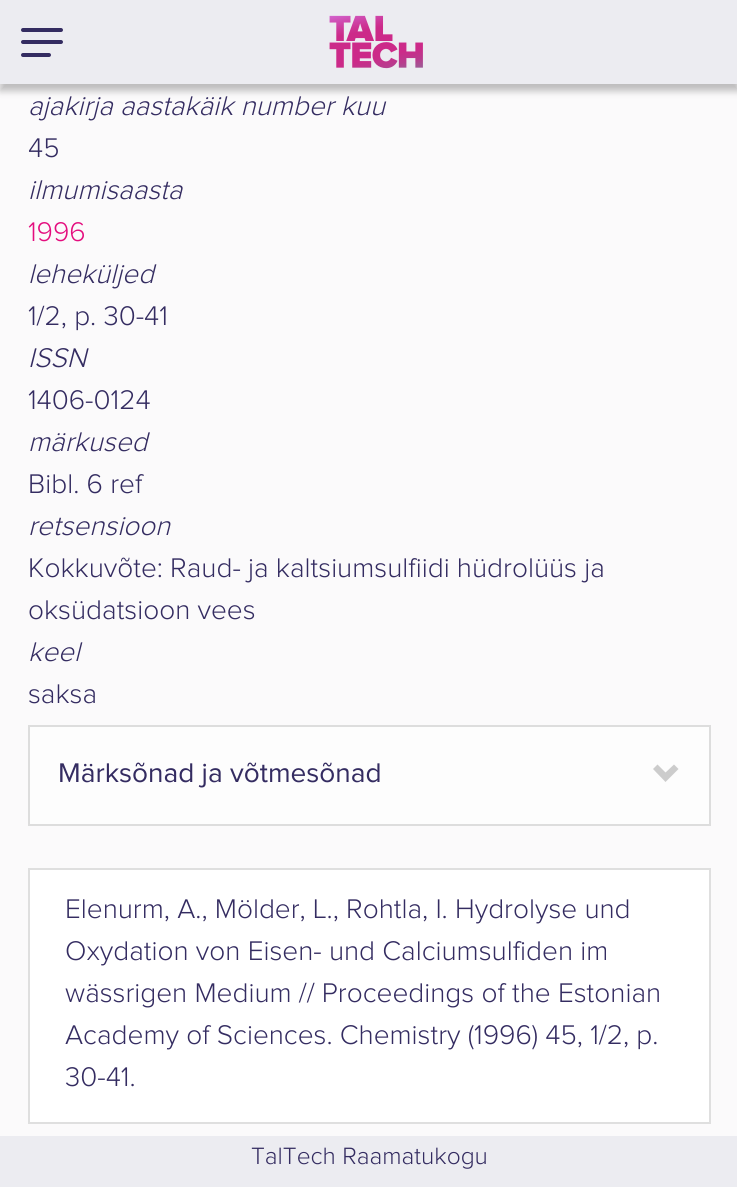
import math
import cairo


def use_color(cr, r, g, b):
  cr.set_source_rgb(r / 255, g / 255, b / 255)

def text(cr, x, y, s, family, size, color, bold=False, italic=False):
  cr.select_font_face(family, cairo.FONT_SLANT_ITALIC if italic else cairo.FONT_SLANT_NORMAL, cairo.FONT_WEIGHT_BOLD if bold else cairo.FONT_WEIGHT_NORMAL)
  cr.set_font_size(size)
  use_color(cr, *color)
  cr.move_to(x, y)
  cr.show_text(s)

def box(cr, x, y, w, h, *color):
  use_color(cr, *color)
  cr.rectangle(x, y, w, h)
  cr.fill()

def round_rect(cr, x, y, w, h, r):
  cr.new_sub_path()
  for i, (u, v) in enumerate([(x + w - r, y + h - r), (x + r, y + h - r), (x + r, y + r), (x + w - r, y + r)]):
    cr.arc(u, v, r, i * math.pi / 2, (i + 1) * math.pi / 2)
  cr.close_path()

def shadow(cr, x, y, w, h, r, blur, alpha):
  cr.push_group_with_content(cairo.CONTENT_ALPHA)
  cr.set_operator(cairo.OPERATOR_SOURCE)
  for i in range(15, -16, -2):
    e = blur * i / 6
    if min(w, h) + 2 * e > 0:
      cr.set_source_rgba(0, 0, 0, alpha * math.erfc((i - 1) / 8.5) / 2)
      round_rect(cr, x - e, y - e, w + 2 * e, h + 2 * e, max(0, min(r + e + blur * .6, min(w, h) / 2 + e)))
      cr.fill()
  cr.mask(cr.pop_group())

def picture(cr, path, x, y, w, h):
  cr.save()
  cr.set_source_surface(cairo.ImageSurface.create_from_png(path), x, y)
  cr.rectangle(x, y, w, h)
  cr.fill()
  cr.restore()

def draw(cr):
  use_color(cr, 251, 250, 251)
  cr.paint()
  use_color(cr, 0, 0, 0)
  shadow(cr, 0, 7, 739, 84, 0, 3.5, 0.25)
  box(cr, 0, 0, 737, 84, 236, 236, 241)
  use_color(cr, 52, 44, 97)
  round_rect(cr, 21, 40, 42, 4, 2)
  cr.fill()
  round_rect(cr, 21, 28, 42, 4, 2)
  cr.fill()
  round_rect(cr, 21, 53, 30, 4, 2)
  cr.fill()
  picture(cr, "img_01.png", 329, 15, 94, 54)
  use_color(cr, 253, 253, 253)
  cr.rectangle(29, 726, 681, 99)
  cr.fill_preserve()
  use_color(cr, 221, 221, 221)
  cr.stroke()
  use_color(cr, 204, 204, 204)
  cr.new_path()
  cr.move_to(678.5, 769)
  cr.line_to(665.5, 782)
  cr.line_to(653, 769)
  cr.line_to(657.5, 764.5)
  cr.line_to(665.5, 772.5)
  cr.line_to(674, 764.5)
  cr.close_path()
  cr.fill()
  use_color(cr, 255, 255, 255)
  cr.rectangle(29, 869, 681, 254)
  cr.fill_preserve()
  use_color(cr, 223, 223, 223)
  cr.stroke()
  box(cr, 0, 1136, 737, 51, 236, 236, 241)
  text(cr, 28, 115, "ajakirja aastakäik number kuu", "Proxima Nova Light", 28, (52, 44, 97), italic=True)
  text(cr, 28, 157, "45", "Proxima Nova Light", 28, (52, 44, 97))
  text(cr, 28, 199, "ilmumisaasta", "Proxima Nova Light", 28, (52, 44, 97), italic=True)
  text(cr, 28, 241, "1996", "Proxima Nova Light", 28, (228, 13, 126))
  text(cr, 28, 283, "leheküljed", "Proxima Nova Light", 28, (52, 44, 97), italic=True)
  text(cr, 28, 325, "1/2, p. 30-41", "Proxima Nova Light", 28, (52, 44, 97))
  text(cr, 28, 367, "ISSN", "Proxima Nova Light", 28, (52, 44, 97), italic=True)
  text(cr, 28, 409, "1406-0124", "Proxima Nova Light", 28, (52, 44, 97))
  text(cr, 28, 451, "märkused", "Proxima Nova Light", 28, (52, 44, 97), italic=True)
  text(cr, 28, 493, "Bibl. 6 ref", "Proxima Nova Light", 28, (52, 44, 97))
  text(cr, 28, 535, "retsensioon", "Proxima Nova Light", 28, (52, 44, 97), italic=True)
  text(cr, 28, 577, "Kokkuvõte: Raud- ja kaltsiumsulfiidi hüdrolüüs ja", "Proxima Nova Light", 28, (52, 44, 97))
  text(cr, 28, 619, "oksüdatsioon vees", "Proxima Nova Light", 28, (52, 44, 97))
  text(cr, 28, 661, "keel", "Proxima Nova Light", 28, (52, 44, 97), italic=True)
  text(cr, 28, 703, "saksa", "Proxima Nova Light", 28, (52, 44, 97))
  text(cr, 58, 782, "Märksõnad ja võtmesõnad", "Proxima Nova", 28, (52, 44, 97))
  text(cr, 65, 918, "Elenurm, A., Mölder, L., Rohtla, I. Hydrolyse und", "Proxima Nova Light", 28, (52, 44, 97))
  text(cr, 65, 960, "Oxydation von Eisen- und Calciumsulfiden im", "Proxima Nova Light", 28, (52, 44, 97))
  text(cr, 65, 1002, "wässrigen Medium // Proceedings of the Estonian", "Proxima Nova Light", 28, (52, 44, 97))
  text(cr, 65, 1044, "Academy of Sciences. Chemistry (1996) 45, 1/2, p.", "Proxima Nova Light", 28, (52, 44, 97))
  text(cr, 65, 1086, "30-41.", "Proxima Nova Light", 28, (52, 44, 97))
  text(cr, 251, 1164, "TalTech Raamatukogu", "Proxima Nova Light", 24.5, (52, 44, 97))


surface = cairo.ImageSurface(cairo.FORMAT_RGB24, 737, 1187)
cr = cairo.Context(surface)
options = cairo.FontOptions()
options.set_hint_metrics(cairo.HINT_METRICS_OFF)
options.set_hint_style(cairo.HINT_STYLE_NONE)
cr.set_font_options(options)
cr.set_miter_limit(4)
draw(cr)
surface.write_to_png("out.png")
